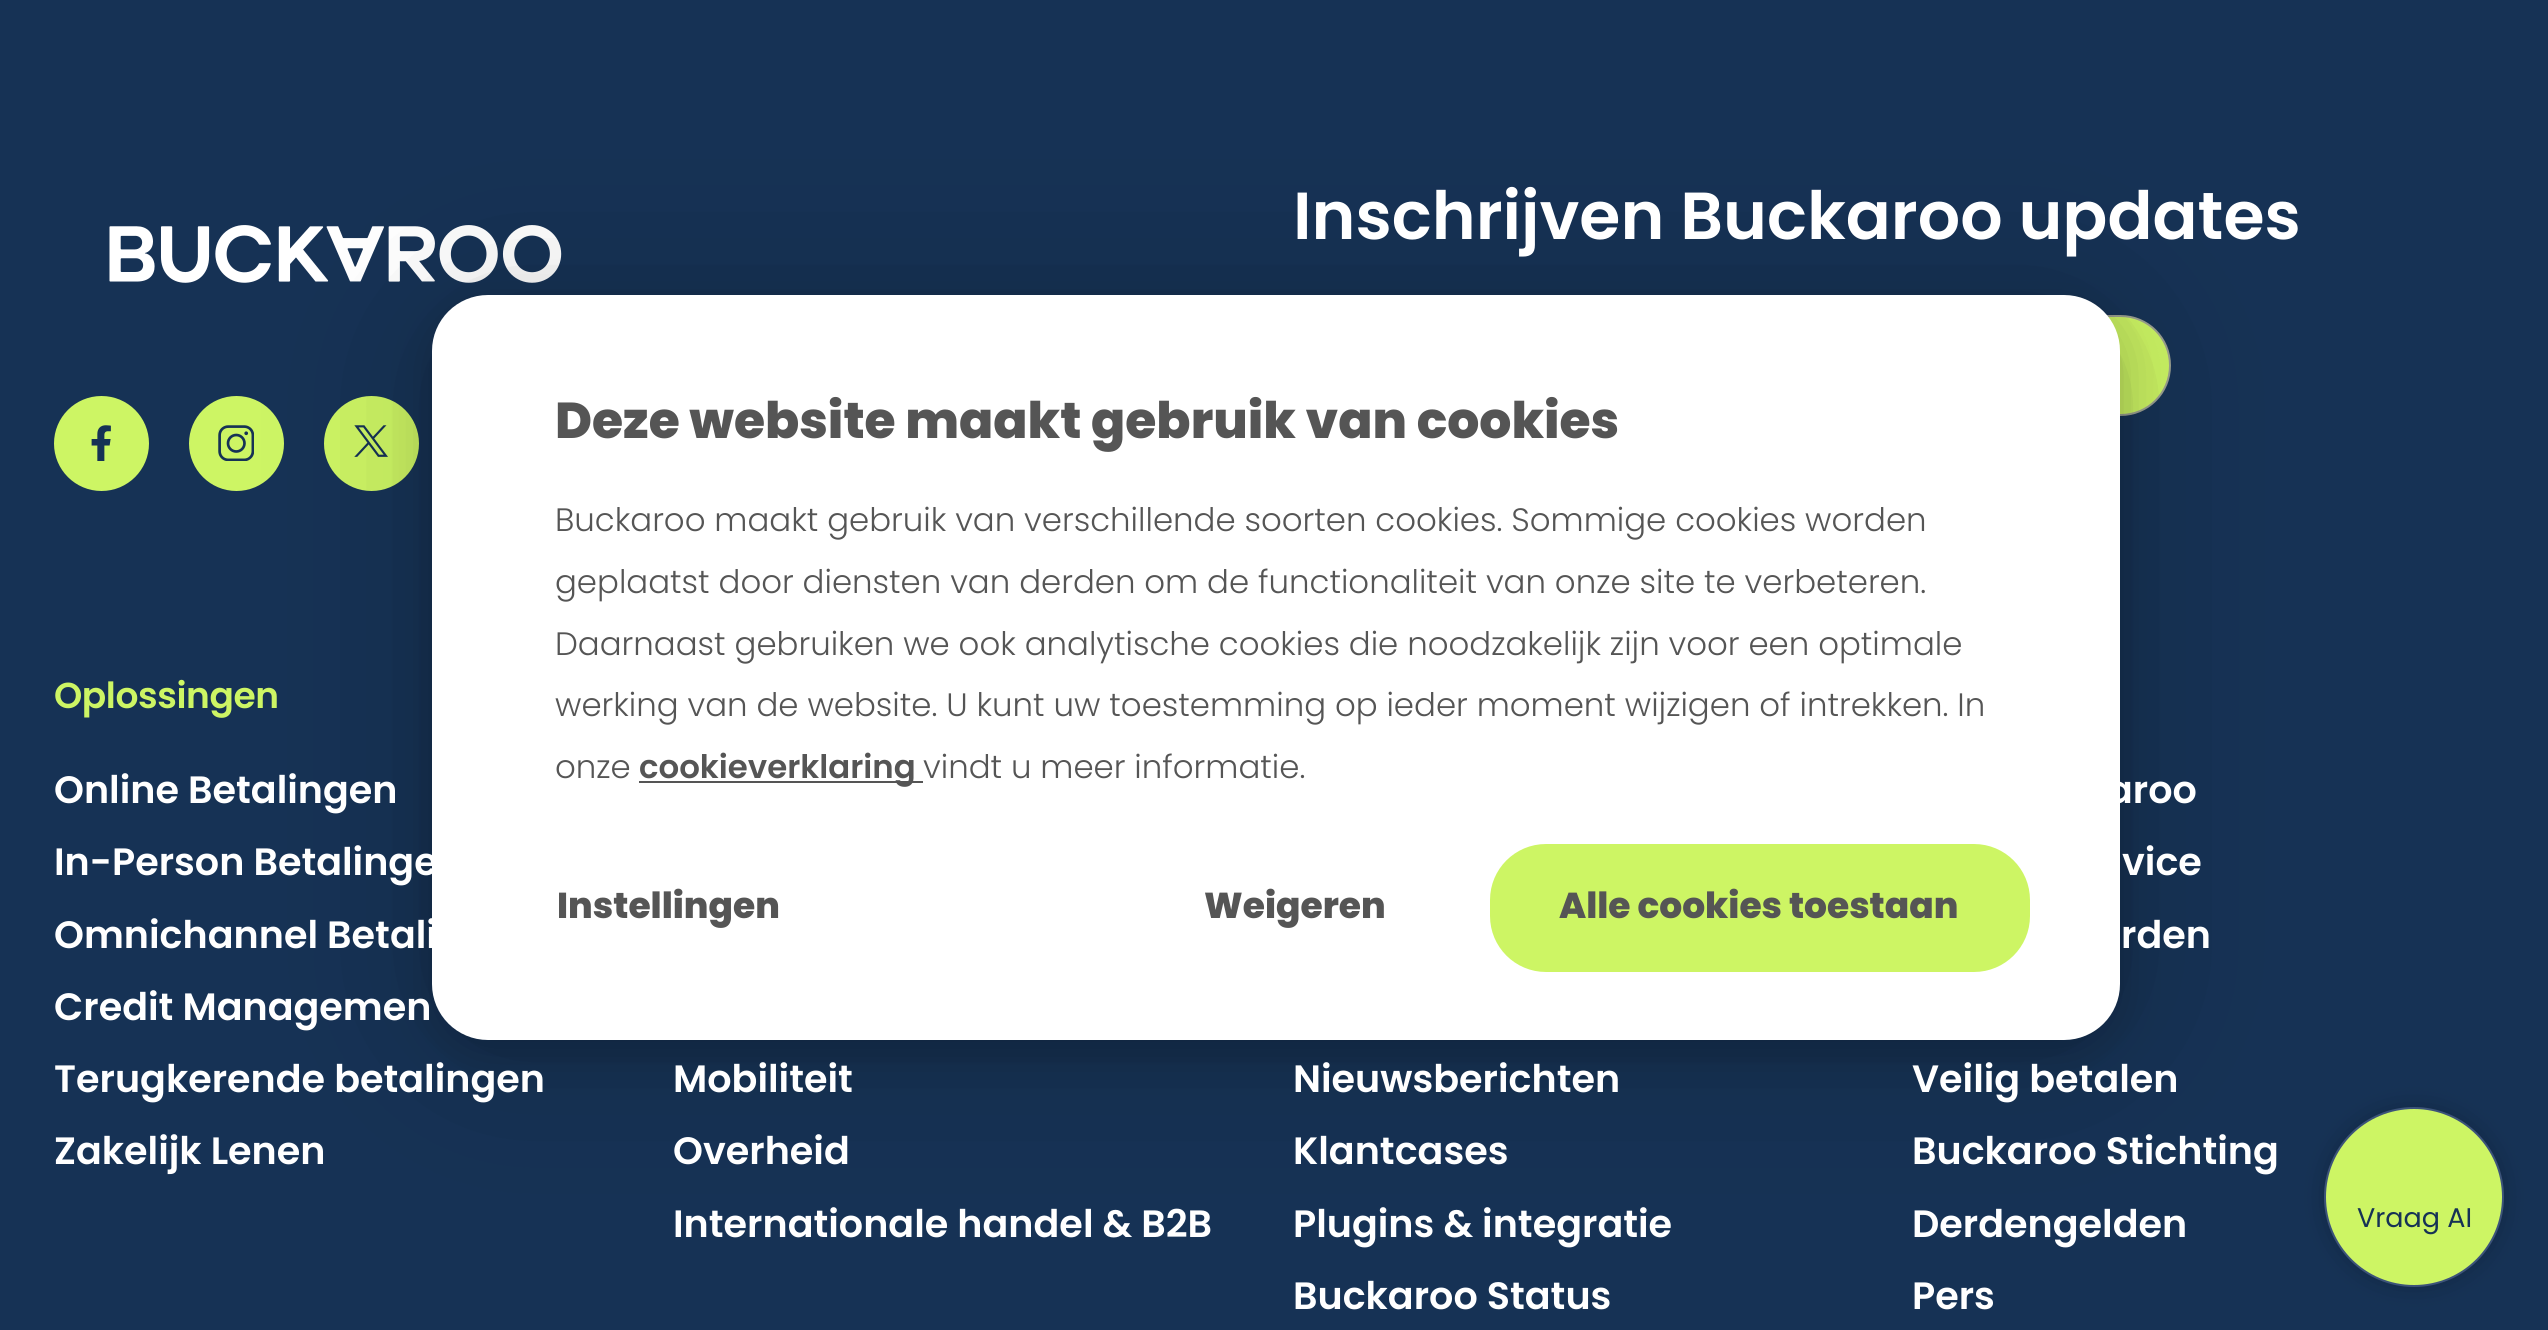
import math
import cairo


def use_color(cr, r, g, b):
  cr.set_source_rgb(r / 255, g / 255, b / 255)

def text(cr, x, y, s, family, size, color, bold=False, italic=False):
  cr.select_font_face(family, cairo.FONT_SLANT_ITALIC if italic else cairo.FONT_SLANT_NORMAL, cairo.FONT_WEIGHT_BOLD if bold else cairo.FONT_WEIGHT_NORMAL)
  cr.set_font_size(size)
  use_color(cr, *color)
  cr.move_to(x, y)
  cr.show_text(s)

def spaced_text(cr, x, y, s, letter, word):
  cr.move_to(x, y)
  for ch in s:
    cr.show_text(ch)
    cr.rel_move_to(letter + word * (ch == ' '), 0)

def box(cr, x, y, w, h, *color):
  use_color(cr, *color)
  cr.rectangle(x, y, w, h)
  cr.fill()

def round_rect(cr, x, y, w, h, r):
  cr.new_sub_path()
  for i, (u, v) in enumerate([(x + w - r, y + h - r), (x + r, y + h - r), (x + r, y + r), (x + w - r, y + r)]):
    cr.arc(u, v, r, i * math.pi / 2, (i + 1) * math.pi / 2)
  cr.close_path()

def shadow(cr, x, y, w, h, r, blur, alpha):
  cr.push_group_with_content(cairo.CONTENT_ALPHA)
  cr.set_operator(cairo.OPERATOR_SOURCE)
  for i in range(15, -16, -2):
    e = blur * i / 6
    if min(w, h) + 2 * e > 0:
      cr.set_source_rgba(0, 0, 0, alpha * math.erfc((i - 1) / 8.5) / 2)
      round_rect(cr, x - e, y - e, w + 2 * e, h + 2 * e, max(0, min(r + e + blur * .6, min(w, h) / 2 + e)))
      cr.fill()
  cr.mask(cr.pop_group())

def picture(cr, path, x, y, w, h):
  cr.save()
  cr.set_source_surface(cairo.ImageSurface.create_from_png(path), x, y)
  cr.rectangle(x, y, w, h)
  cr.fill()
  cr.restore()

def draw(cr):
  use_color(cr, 22, 50, 85)
  cr.paint()
  picture(cr, "img_01.png", 109, 225, 453, 58)
  use_color(cr, 205, 245, 100)
  cr.arc(101.5, 443.5, 46.5, 0, 2 * math.pi)
  cr.fill_preserve()
  cr.stroke()
  picture(cr, "img_02.png", 91, 425, 20, 36)
  cr.arc(236.5, 443.5, 46.5, 0, 2 * math.pi)
  cr.fill_preserve()
  cr.stroke()
  picture(cr, "img_03.png", 218, 425, 36, 36)
  cr.arc(371.5, 443.5, 46.5, 0, 2 * math.pi)
  cr.fill_preserve()
  cr.stroke()
  picture(cr, "img_04.png", 354, 425, 34, 32)
  cr.new_path()
  cr.move_to(2064, 316)
  cr.line_to(2120.5, 316)
  cr.curve_to(2148, 316, 2170, 338, 2170, 365.5)
  cr.curve_to(2170, 393, 2148, 415, 2120.5, 415)
  cr.line_to(2064, 415)
  cr.close_path()
  cr.fill_preserve()
  use_color(cr, 155, 160, 145)
  cr.stroke()
  use_color(cr, 0, 0, 0)
  shadow(cr, 432, 308, 1688, 745, 56, 22.5, 0.19)
  shadow(cr, 2324, 1107, 180, 180, 90, 11, 0.2)
  use_color(cr, 205, 245, 100)
  cr.arc(2414, 1197, 89, 0, 2 * math.pi)
  cr.fill_preserve()
  use_color(cr, 60, 83, 121)
  cr.stroke()
  use_color(cr, 0, 0, 0)
  shadow(cr, 432, 304, 1688, 745, 56, 79, 0.2)
  use_color(cr, 255, 255, 255)
  round_rect(cr, 432, 295, 1688, 745, 56)
  cr.fill()
  box(cr, 639, 781, 284, 2, 85, 85, 85)
  use_color(cr, 205, 245, 100)
  round_rect(cr, 1491, 845, 538, 126, 55)
  cr.fill_preserve()
  cr.stroke()
  text(cr, 1293, 239, "Inschrijven Buckaroo updates", "Poppins SemiBold", 66.5, (255, 255, 255))
  cr.set_font_size(36)
  use_color(cr, 205, 245, 100)
  spaced_text(cr, 54, 708, "Oplossingen", -0.4, 0)
  text(cr, 54, 803, "Online Betalingen", "Poppins SemiBold", 38.1, (255, 255, 255))
  text(cr, 54, 875, "In-Person Betalinge", "Poppins SemiBold", 38.1, (255, 255, 255))
  text(cr, 54, 948, "Omnichannel Betali", "Poppins SemiBold", 38.1, (255, 255, 255))
  text(cr, 54, 1020, "Credit Managemen", "Poppins SemiBold", 38.1, (255, 255, 255))
  text(cr, 54, 1092, "Terugkerende betalingen", "Poppins SemiBold", 38.1, (255, 255, 255))
  text(cr, 54, 1164, "Zakelijk Lenen", "Poppins SemiBold", 38.1, (255, 255, 255))
  text(cr, 673, 1092, "Mobiliteit", "Poppins SemiBold", 38.1, (255, 255, 255))
  text(cr, 673, 1164, "Overheid", "Poppins SemiBold", 38.1, (255, 255, 255))
  text(cr, 673, 1237, "Internationale handel & B2B", "Poppins SemiBold", 38.1, (255, 255, 255))
  text(cr, 1293, 1092, "Nieuwsberichten", "Poppins SemiBold", 38.1, (255, 255, 255))
  text(cr, 1293, 1164, "Klantcases", "Poppins SemiBold", 38.1, (255, 255, 255))
  text(cr, 1293, 1237, "Plugins & integratie", "Poppins SemiBold", 38.1, (255, 255, 255))
  text(cr, 1293, 1309, "Buckaroo Status", "Poppins SemiBold", 38.1, (255, 255, 255))
  text(cr, 2107, 803, "aroo", "Poppins SemiBold", 38.1, (255, 255, 255))
  text(cr, 2122, 875, "vice", "Poppins SemiBold", 38.1, (255, 255, 255))
  text(cr, 2121, 948, "rden", "Poppins SemiBold", 38.1, (255, 255, 255))
  text(cr, 1912, 1092, "Veilig betalen", "Poppins SemiBold", 38.1, (255, 255, 255))
  text(cr, 1912, 1164, "Buckaroo Stichting", "Poppins SemiBold", 38.1, (255, 255, 255))
  text(cr, 1912, 1237, "Derdengelden", "Poppins SemiBold", 38.1, (255, 255, 255))
  text(cr, 1912, 1309, "Pers", "Poppins SemiBold", 38.1, (255, 255, 255))
  text(cr, 555, 438, "Deze website maakt gebruik van cookies", "Poppins ExtraBold", 50.4, (85, 85, 85))
  text(cr, 555, 531, "Buckaroo maakt gebruik van verschillende soorten cookies. Sommige cookies worden", "Poppins Light", 32.4, (85, 85, 85))
  text(cr, 555, 593, "geplaatst door diensten van derden om de functionaliteit van onze site te verbeteren.", "Poppins Light", 32.4, (85, 85, 85))
  text(cr, 555, 655, "Daarnaast gebruiken we ook analytische cookies die noodzakelijk zijn voor een optimale", "Poppins Light", 32.4, (85, 85, 85))
  text(cr, 555, 716, "werking van de website. U kunt uw toestemming op ieder moment wijzigen of intrekken. In", "Poppins Light", 32.4, (85, 85, 85))
  text(cr, 555, 778, "onze", "Poppins Light", 32.4, (85, 85, 85))
  text(cr, 639, 778, "cookieverklaring", "Poppins SemiBold", 32.4, (85, 85, 85))
  text(cr, 923, 778, "vindt u meer informatie.", "Poppins Light", 32.4, (85, 85, 85))
  text(cr, 557, 918, "Instellingen", "Poppins ExtraBold", 36, (85, 85, 85))
  text(cr, 1204, 918, "Weigeren", "Poppins ExtraBold", 36, (85, 85, 85))
  text(cr, 1559, 918, "Alle cookies toestaan", "Poppins ExtraBold", 36, (85, 85, 85))
  text(cr, 2357, 1227, "Vraag AI", "Poppins", 27, (22, 50, 85))


surface = cairo.ImageSurface(cairo.FORMAT_RGB24, 2548, 1330)
cr = cairo.Context(surface)
options = cairo.FontOptions()
options.set_hint_metrics(cairo.HINT_METRICS_OFF)
options.set_hint_style(cairo.HINT_STYLE_NONE)
cr.set_font_options(options)
cr.set_miter_limit(4)
draw(cr)
surface.write_to_png("out.png")
